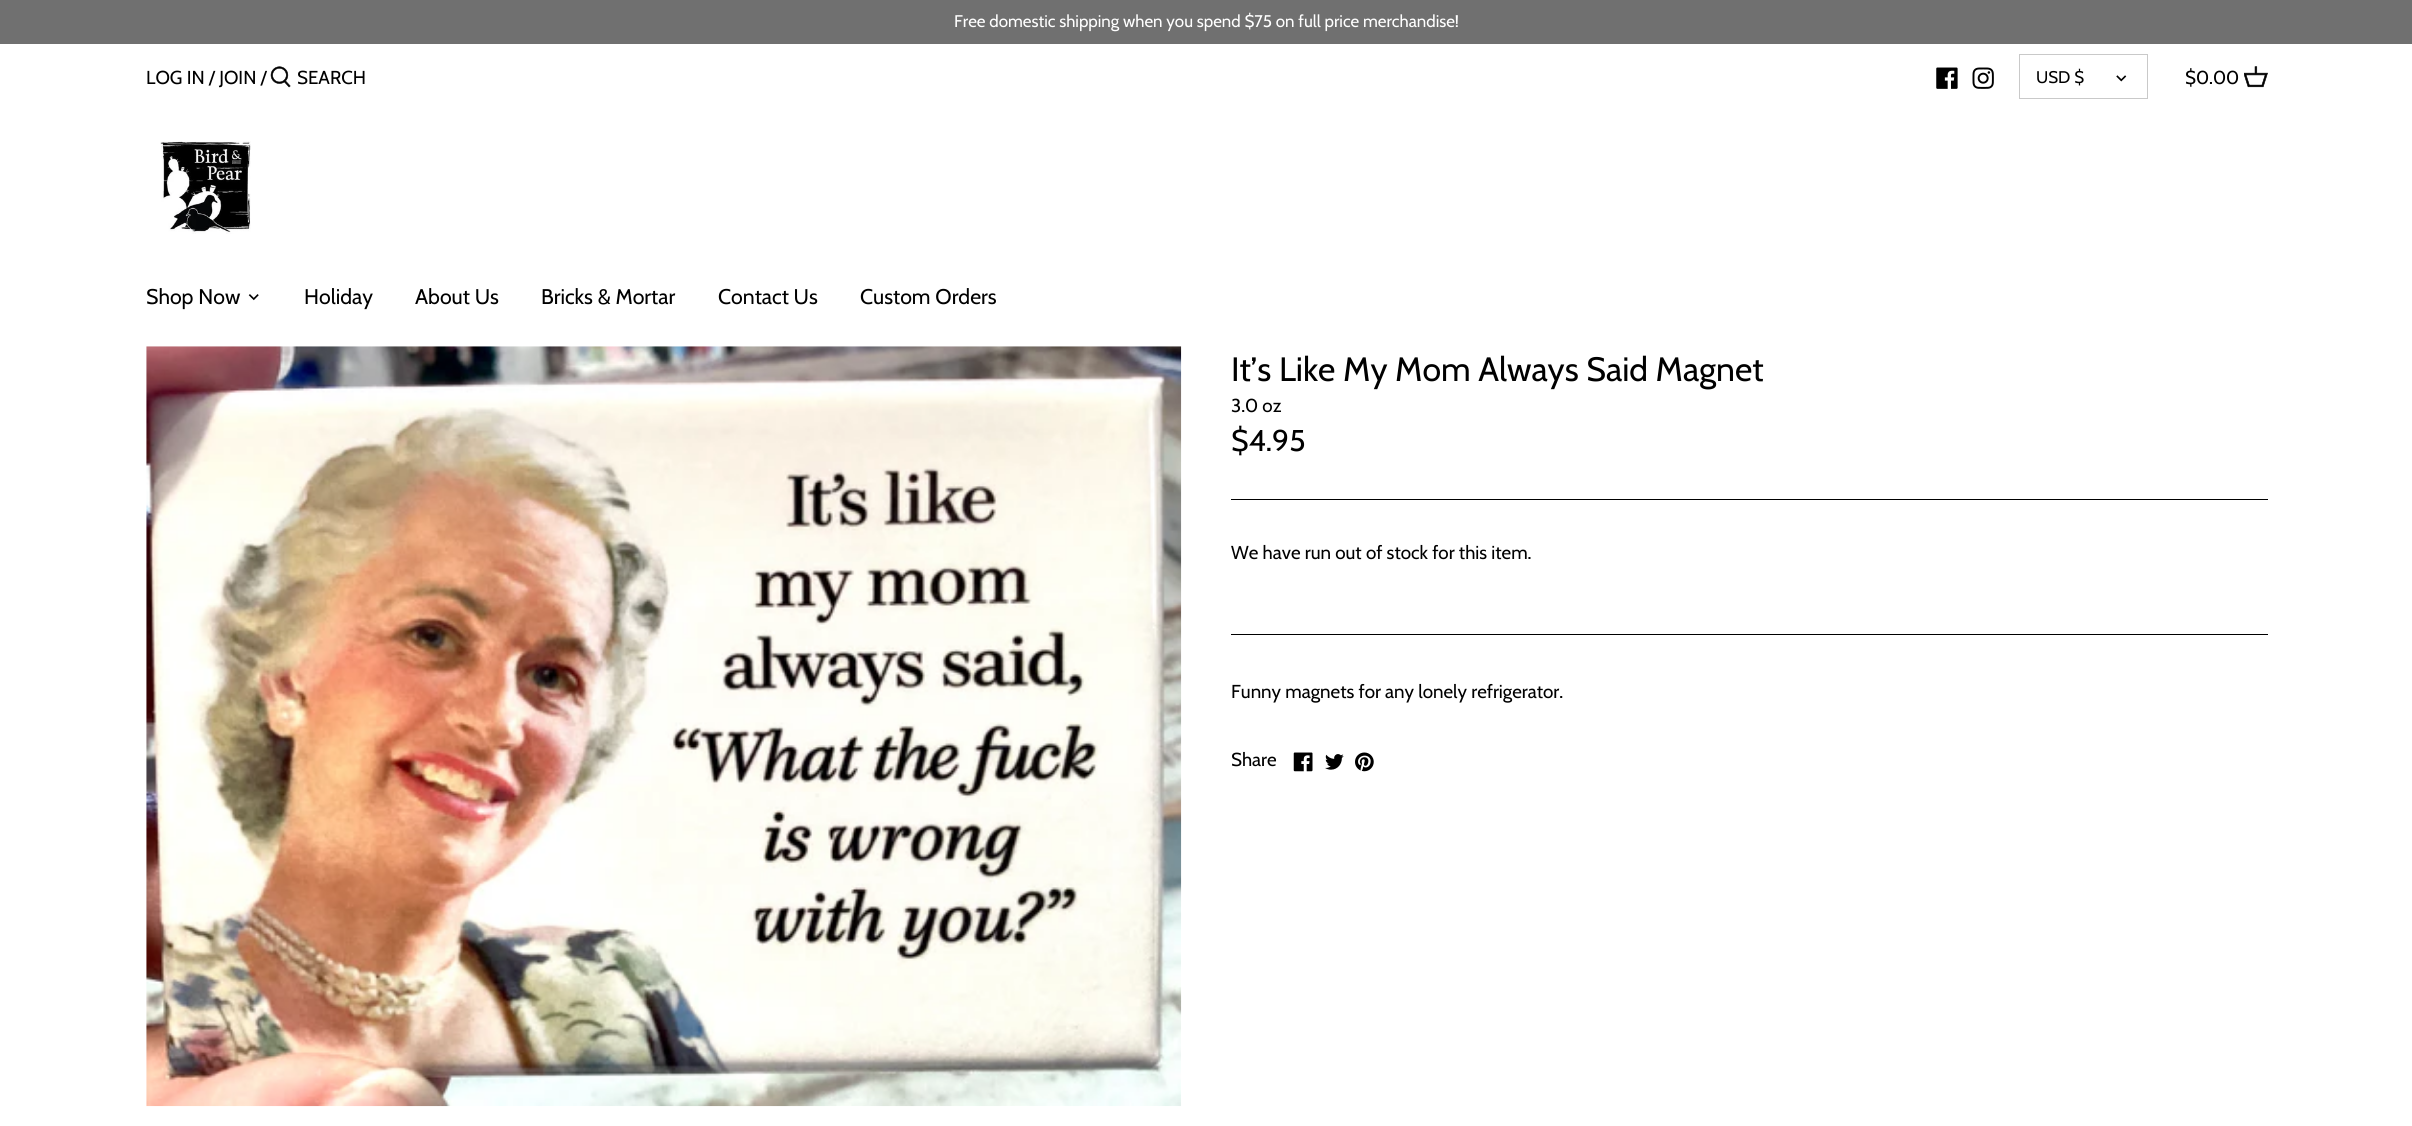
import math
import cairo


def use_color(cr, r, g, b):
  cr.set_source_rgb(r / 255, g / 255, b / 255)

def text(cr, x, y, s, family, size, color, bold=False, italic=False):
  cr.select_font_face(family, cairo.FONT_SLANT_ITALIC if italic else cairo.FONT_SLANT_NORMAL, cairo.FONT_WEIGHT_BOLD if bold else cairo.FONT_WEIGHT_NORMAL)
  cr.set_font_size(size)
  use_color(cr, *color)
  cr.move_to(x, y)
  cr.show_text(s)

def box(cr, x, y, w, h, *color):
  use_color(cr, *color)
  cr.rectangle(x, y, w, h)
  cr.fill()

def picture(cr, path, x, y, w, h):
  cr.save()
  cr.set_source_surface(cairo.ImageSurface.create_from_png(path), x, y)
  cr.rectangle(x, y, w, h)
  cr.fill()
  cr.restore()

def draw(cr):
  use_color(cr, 255, 255, 255)
  cr.paint()
  box(cr, 0, 0, 2412, 44, 112, 112, 112)
  picture(cr, "img_01.png", 270, 66, 21, 22)
  picture(cr, "img_02.png", 1936, 67, 22, 22)
  picture(cr, "img_03.png", 1972, 67, 22, 22)
  cr.rectangle(2019.5, 54.5, 128, 44)
  use_color(cr, 201, 201, 201)
  cr.set_line_width(1)
  cr.stroke()
  picture(cr, "img_04.png", 2116, 75, 11, 7)
  picture(cr, "img_05.png", 2244, 66, 24, 22)
  picture(cr, "img_06.png", 160, 141, 91, 93)
  picture(cr, "img_07.png", 248, 294, 11, 7)
  picture(cr, "img_08.png", 146, 346, 1036, 761)
  box(cr, 1231, 499, 1037, 1, 0, 0, 0)
  box(cr, 1231, 634, 1037, 1, 0, 0, 0)
  picture(cr, "img_09.png", 1293, 752, 20, 20)
  picture(cr, "img_10.png", 1325, 754, 19, 16)
  picture(cr, "img_11.png", 1355, 752, 19, 20)
  text(cr, 954, 27, "Free domestic shipping when you spend $75 on full price merchandise!", "Cabin", 16.9, (255, 255, 255))
  text(cr, 146, 84, "LOG IN / JOIN /", "Cabin", 18.75, (0, 0, 0))
  text(cr, 297, 84, "SEARCH", "Cabin", 18.75, (0, 0, 0))
  text(cr, 2036, 83, "USD $", "Cabin", 16.9, (0, 0, 0))
  text(cr, 2185, 84, "$0.00", "Cabin", 18.75, (0, 0, 0))
  text(cr, 146, 304, "Shop Now", "Cabin", 21.25, (0, 0, 0))
  text(cr, 304, 304, "Holiday", "Cabin", 21.25, (0, 0, 0))
  text(cr, 415, 304, "About Us", "Cabin", 21.25, (0, 0, 0))
  text(cr, 541, 304, "Bricks & Mortar", "Cabin", 21.25, (0, 0, 0))
  text(cr, 718, 304, "Contact Us", "Cabin", 21.25, (0, 0, 0))
  text(cr, 860, 304, "Custom Orders", "Cabin", 21.25, (0, 0, 0))
  text(cr, 1231, 381, "It’s Like My Mom Always Said Magnet", "Cabin", 33.75, (0, 0, 0))
  text(cr, 1231, 412, "3.0 oz", "Cabin", 18.75, (0, 0, 0))
  text(cr, 1231, 451, "$4.95", "Cabin", 30, (0, 0, 0))
  text(cr, 1231, 559, "We have run out of stock for this item.", "Cabin", 18.75, (0, 0, 0))
  text(cr, 1231, 698, "Funny magnets for any lonely refrigerator.", "Cabin", 18.75, (0, 0, 0))
  text(cr, 1231, 766, "Share", "Cabin", 18.75, (0, 0, 0))


surface = cairo.ImageSurface(cairo.FORMAT_RGB24, 2412, 1126)
cr = cairo.Context(surface)
options = cairo.FontOptions()
options.set_hint_metrics(cairo.HINT_METRICS_OFF)
options.set_hint_style(cairo.HINT_STYLE_NONE)
cr.set_font_options(options)
cr.set_miter_limit(4)
draw(cr)
surface.write_to_png("out.png")
